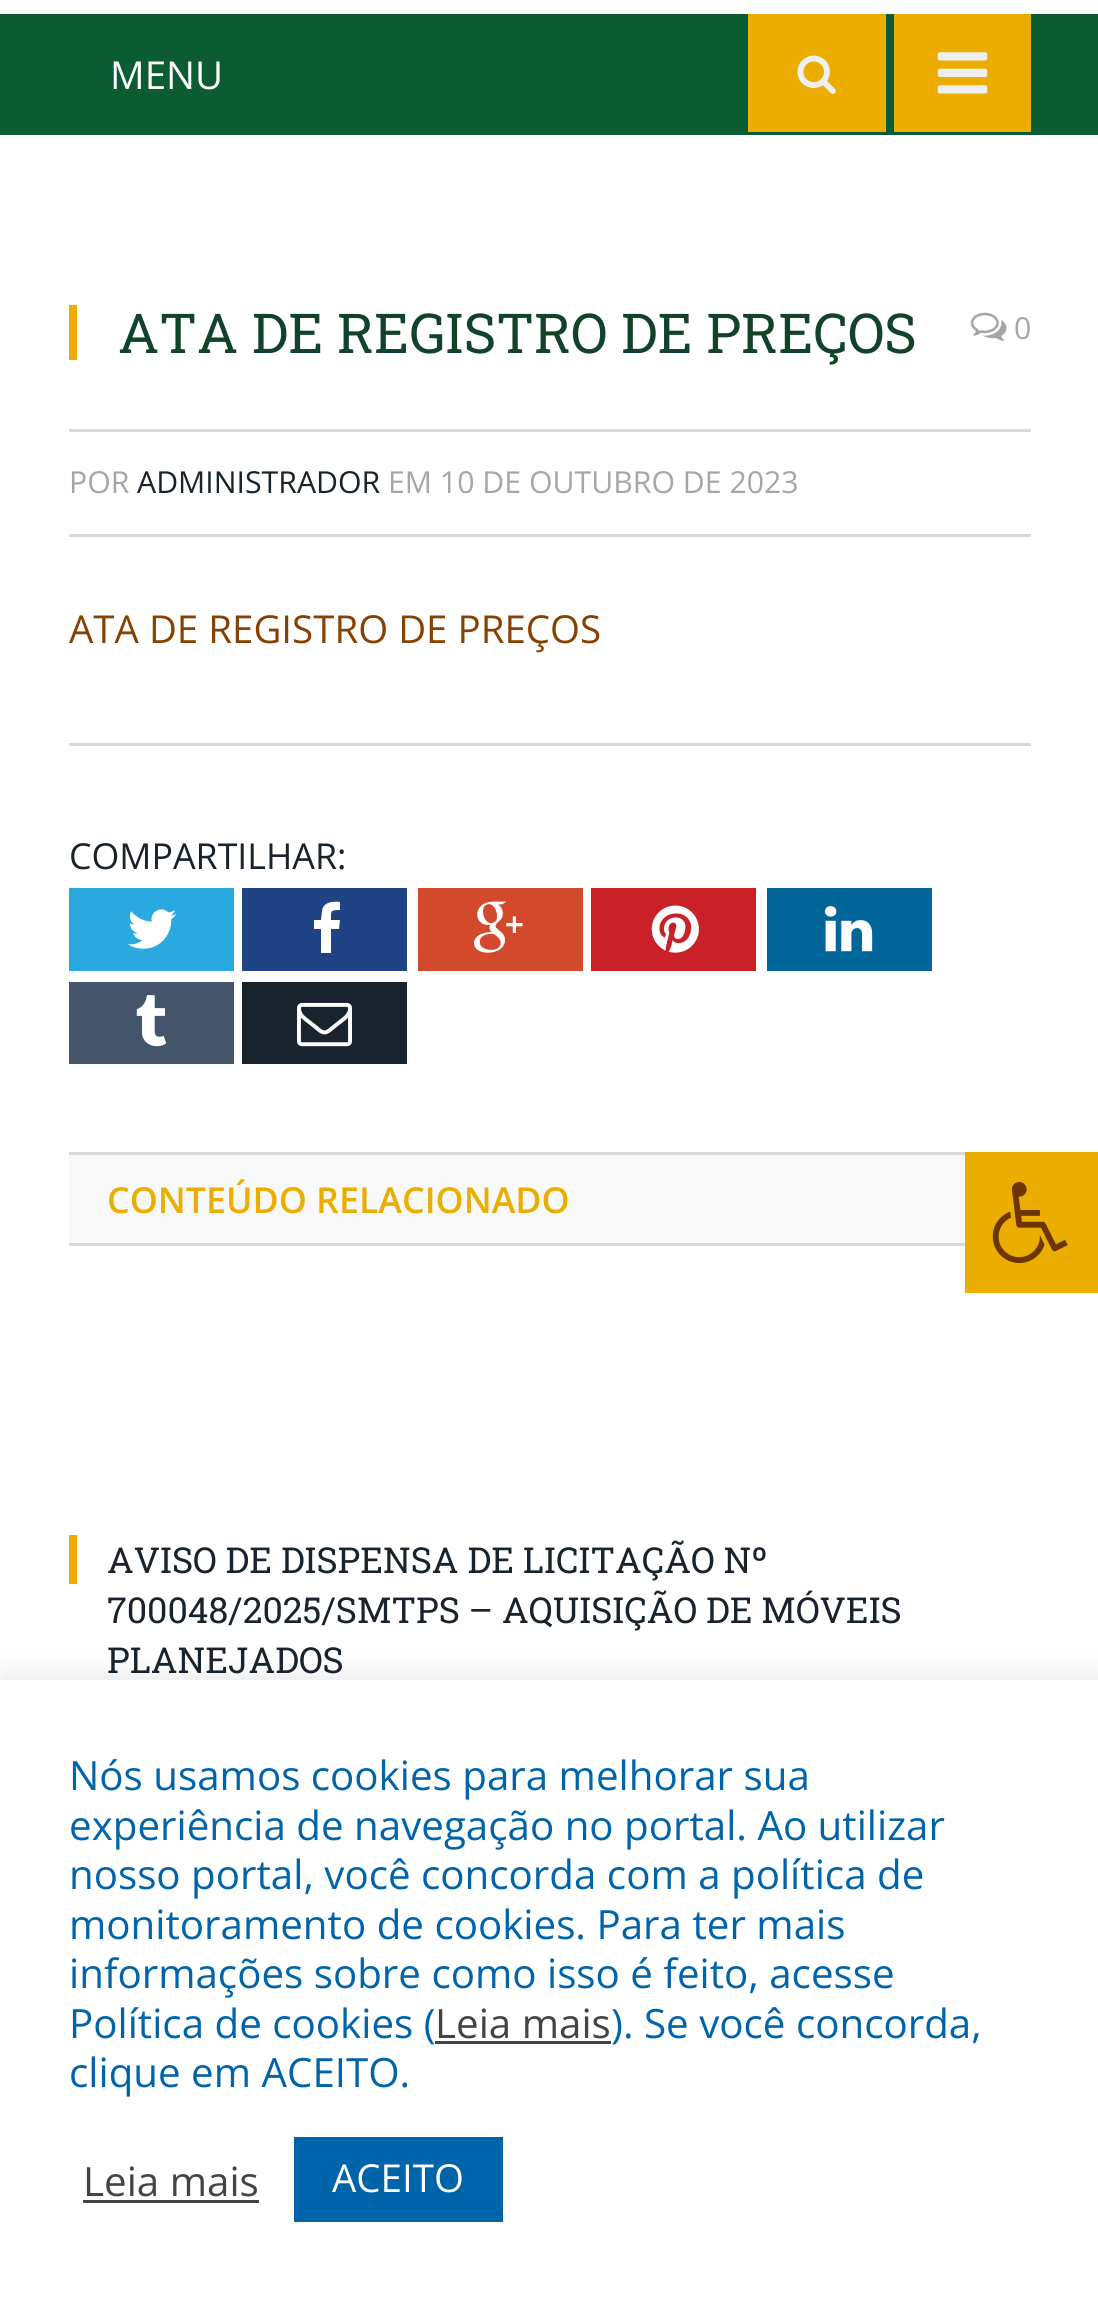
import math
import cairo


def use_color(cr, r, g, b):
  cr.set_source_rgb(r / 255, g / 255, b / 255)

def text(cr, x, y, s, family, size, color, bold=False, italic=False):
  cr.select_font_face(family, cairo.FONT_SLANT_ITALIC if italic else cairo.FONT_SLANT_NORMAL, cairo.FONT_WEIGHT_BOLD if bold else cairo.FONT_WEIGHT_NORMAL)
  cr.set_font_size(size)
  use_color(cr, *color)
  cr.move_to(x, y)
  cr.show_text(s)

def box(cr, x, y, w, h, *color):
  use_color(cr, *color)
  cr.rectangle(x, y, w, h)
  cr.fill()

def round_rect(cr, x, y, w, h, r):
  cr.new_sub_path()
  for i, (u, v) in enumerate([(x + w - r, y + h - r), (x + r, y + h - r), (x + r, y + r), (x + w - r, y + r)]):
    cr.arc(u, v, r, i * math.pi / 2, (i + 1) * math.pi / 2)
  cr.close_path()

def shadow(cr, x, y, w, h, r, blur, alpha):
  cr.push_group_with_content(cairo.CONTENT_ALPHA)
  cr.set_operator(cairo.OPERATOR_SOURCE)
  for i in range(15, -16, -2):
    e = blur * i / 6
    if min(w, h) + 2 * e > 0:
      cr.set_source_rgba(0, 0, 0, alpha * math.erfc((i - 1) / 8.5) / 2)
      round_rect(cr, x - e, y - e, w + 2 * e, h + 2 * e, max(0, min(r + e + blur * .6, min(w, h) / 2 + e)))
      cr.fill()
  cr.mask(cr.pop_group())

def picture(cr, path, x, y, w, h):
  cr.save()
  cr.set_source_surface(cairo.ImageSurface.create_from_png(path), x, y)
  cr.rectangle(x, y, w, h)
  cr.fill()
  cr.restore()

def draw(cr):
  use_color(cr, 255, 255, 255)
  cr.paint()
  box(cr, 0, 14, 1098, 121, 12, 92, 51)
  box(cr, 748, 14, 138, 118, 235, 173, 0)
  picture(cr, "img_01.png", 797, 55, 39, 39)
  box(cr, 894, 14, 137, 118, 235, 173, 0)
  picture(cr, "img_02.png", 937, 52, 51, 42)
  box(cr, 69, 305, 8, 55, 235, 173, 0)
  picture(cr, "img_03.png", 970, 312, 37, 29)
  box(cr, 69, 429, 962, 3, 217, 217, 217)
  box(cr, 69, 534, 962, 3, 217, 217, 217)
  box(cr, 69, 743, 962, 3, 217, 217, 217)
  box(cr, 69, 888, 165, 83, 42, 169, 224)
  picture(cr, "img_04.png", 128, 909, 49, 40)
  box(cr, 242, 888, 165, 83, 32, 67, 133)
  use_color(cr, 255, 255, 255)
  cr.new_path()
  cr.move_to(340, 902)
  cr.line_to(340, 910)
  cr.curve_to(330, 910, 331, 911, 331, 920)
  cr.line_to(340, 920)
  cr.line_to(339, 929)
  cr.line_to(331, 929)
  cr.line_to(331, 953)
  cr.line_to(321, 953)
  cr.line_to(321, 929)
  cr.line_to(314, 929)
  cr.line_to(314, 920)
  cr.line_to(321, 920)
  cr.line_to(322, 911)
  cr.curve_to(323, 902, 333, 901, 340, 902)
  cr.close_path()
  cr.fill()
  box(cr, 418, 888, 165, 83, 211, 73, 44)
  picture(cr, "img_05.png", 474, 901, 49, 52)
  box(cr, 591, 888, 165, 83, 202, 33, 40)
  picture(cr, "img_06.png", 651, 905, 48, 48)
  box(cr, 767, 888, 165, 83, 2, 102, 154)
  picture(cr, "img_07.png", 825, 906, 48, 46)
  box(cr, 69, 982, 165, 82, 68, 84, 107)
  picture(cr, "img_08.png", 136, 995, 31, 52)
  box(cr, 242, 982, 165, 82, 25, 35, 45)
  picture(cr, "img_09.png", 297, 1002, 55, 45)
  box(cr, 69, 1155, 896, 88, 249, 249, 249)
  box(cr, 69, 1152, 896, 3, 217, 217, 217)
  box(cr, 69, 1243, 896, 3, 217, 217, 217)
  box(cr, 69, 1535, 8, 49, 235, 173, 0)
  box(cr, 965, 1152, 133, 141, 235, 173, 0)
  picture(cr, "img_10.png", 992, 1182, 76, 81)
  use_color(cr, 172, 171, 171)
  shadow(cr, 0, 1678, 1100, 624, 0, 14, 0.3)
  box(cr, 0, 1680, 1098, 623, 255, 255, 255)
  box(cr, 435, 2041, 176, 3, 68, 68, 68)
  box(cr, 83, 2200, 176, 3, 68, 68, 68)
  box(cr, 294, 2137, 209, 85, 0, 100, 171)
  text(cr, 110, 89, "MENU", "Open Sans", 38.5, (255, 255, 255))
  text(cr, 118, 353, "ATA DE REGISTRO DE PREÇOS", "Roboto Slab", 55, (16, 67, 41))
  text(cr, 1014, 339, "0", "Open Sans", 30.25, (166, 166, 166))
  text(cr, 69, 493, "POR", "Open Sans", 30.25, (166, 166, 166))
  text(cr, 137, 493, "ADMINISTRADOR", "Open Sans", 30.25, (25, 35, 45))
  text(cr, 388, 493, "EM 10 DE OUTUBRO DE 2023", "Open Sans", 30.25, (166, 166, 166))
  text(cr, 69, 643, "ATA DE REGISTRO DE PREÇOS", "Open Sans", 38.5, (135, 66, 1))
  text(cr, 69, 869, "COMPARTILHAR:", "Open Sans", 35.75, (25, 35, 45))
  text(cr, 107, 1213, "CONTEÚDO RELACIONADO", "Open Sans SemiBold", 35.75, (235, 173, 0))
  text(cr, 107, 1573, "AVISO DE DISPENSA DE LICITAÇÃO Nº", "Roboto Slab", 35.75, (25, 35, 45))
  text(cr, 107, 1623, "700048/2025/SMTPS – AQUISIÇÃO DE MÓVEIS", "Roboto Slab", 35.75, (25, 35, 45))
  text(cr, 107, 1673, "PLANEJADOS", "Roboto Slab", 35.75, (25, 35, 45))
  text(cr, 69, 1790, "Nós usamos cookies para melhorar sua", "Open Sans", 40.3, (0, 100, 171))
  text(cr, 69, 1840, "experiência de navegação no portal. Ao utilizar", "Open Sans", 40.3, (0, 100, 171))
  text(cr, 69, 1889, "nosso portal, você concorda com a política de", "Open Sans", 40.3, (0, 100, 171))
  text(cr, 69, 1939, "monitoramento de cookies. Para ter mais", "Open Sans", 40.3, (0, 100, 171))
  text(cr, 69, 1988, "informações sobre como isso é feito, acesse", "Open Sans", 40.3, (0, 100, 171))
  text(cr, 69, 2038, "Política de cookies (", "Open Sans", 40.3, (0, 100, 171))
  text(cr, 435, 2038, "Leia mais", "Open Sans", 40.3, (68, 68, 68))
  text(cr, 611, 2038, "). Se você concorda,", "Open Sans", 40.3, (0, 100, 171))
  text(cr, 69, 2087, "clique em ACEITO.", "Open Sans", 40.3, (0, 100, 171))
  text(cr, 83, 2196, "Leia mais", "Open Sans", 40.3, (68, 68, 68))
  text(cr, 332, 2192, "ACEITO", "Open Sans", 38.5, (255, 255, 255))


surface = cairo.ImageSurface(cairo.FORMAT_RGB24, 1098, 2303)
cr = cairo.Context(surface)
options = cairo.FontOptions()
options.set_hint_metrics(cairo.HINT_METRICS_OFF)
options.set_hint_style(cairo.HINT_STYLE_NONE)
cr.set_font_options(options)
cr.set_miter_limit(4)
draw(cr)
surface.write_to_png("out.png")
